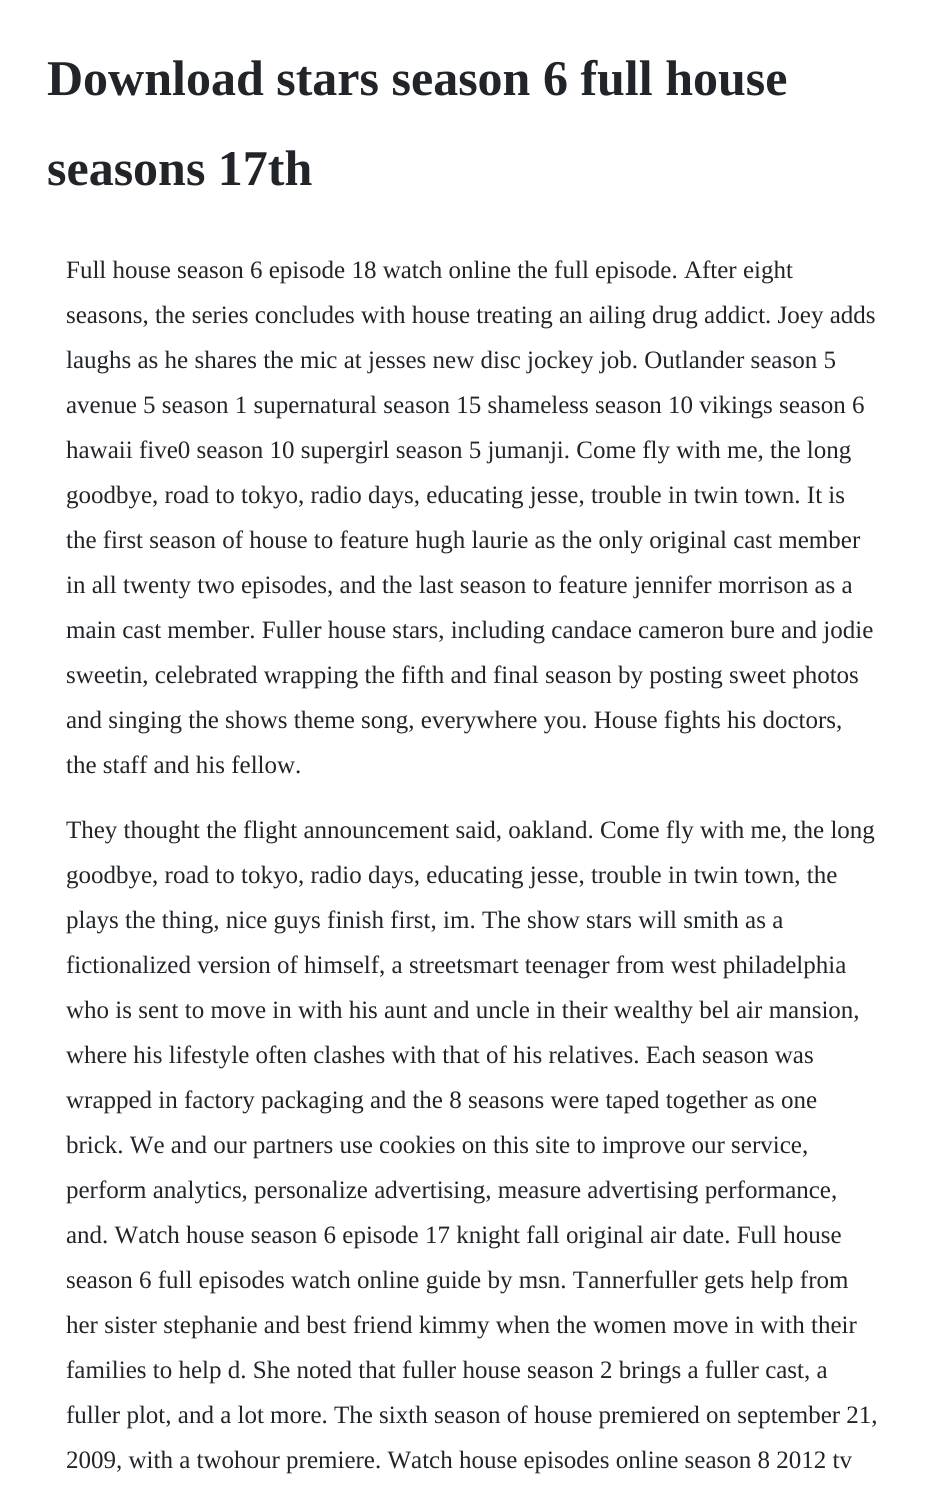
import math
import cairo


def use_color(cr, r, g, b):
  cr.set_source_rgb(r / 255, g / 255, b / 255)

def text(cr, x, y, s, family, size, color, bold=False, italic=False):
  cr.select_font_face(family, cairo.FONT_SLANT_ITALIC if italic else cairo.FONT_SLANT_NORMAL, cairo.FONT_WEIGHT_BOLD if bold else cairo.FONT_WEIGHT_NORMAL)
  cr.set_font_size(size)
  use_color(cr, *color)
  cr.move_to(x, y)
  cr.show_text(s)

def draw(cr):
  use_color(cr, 255, 255, 255)
  cr.paint()
  text(cr, 47, 95, "Download stars season 6 full house", "Liberation Serif", 50, (33, 37, 41), bold=True)
  text(cr, 47, 185, "seasons 17th", "Liberation Serif", 50, (33, 37, 41), bold=True)
  text(cr, 66, 278, "Full house season 6 episode 18 watch online the full episode. After eight", "Liberation Serif", 25, (33, 37, 41))
  text(cr, 66, 323, "seasons, the series concludes with house treating an ailing drug addict. Joey adds", "Liberation Serif", 25, (33, 37, 41))
  text(cr, 66, 368, "laughs as he shares the mic at jesses new disc jockey job. Outlander season 5", "Liberation Serif", 25, (33, 37, 41))
  text(cr, 66, 413, "avenue 5 season 1 supernatural season 15 shameless season 10 vikings season 6", "Liberation Serif", 25, (33, 37, 41))
  text(cr, 66, 458, "hawaii five0 season 10 supergirl season 5 jumanji. Come fly with me, the long", "Liberation Serif", 25, (33, 37, 41))
  text(cr, 66, 503, "goodbye, road to tokyo, radio days, educating jesse, trouble in twin town. It is", "Liberation Serif", 25, (33, 37, 41))
  text(cr, 66, 548, "the first season of house to feature hugh laurie as the only original cast member", "Liberation Serif", 25, (33, 37, 41))
  text(cr, 66, 593, "in all twenty two episodes, and the last season to feature jennifer morrison as a", "Liberation Serif", 25, (33, 37, 41))
  text(cr, 66, 638, "main cast member. Fuller house stars, including candace cameron bure and jodie", "Liberation Serif", 25, (33, 37, 41))
  text(cr, 66, 683, "sweetin, celebrated wrapping the fifth and final season by posting sweet photos", "Liberation Serif", 25, (33, 37, 41))
  text(cr, 66, 728, "and singing the shows theme song, everywhere you. House fights his doctors,", "Liberation Serif", 25, (33, 37, 41))
  text(cr, 66, 773, "the staff and his fellow.", "Liberation Serif", 25, (33, 37, 41))
  text(cr, 66, 838, "They thought the flight announcement said, oakland. Come fly with me, the long", "Liberation Serif", 25, (33, 37, 41))
  text(cr, 66, 883, "goodbye, road to tokyo, radio days, educating jesse, trouble in twin town, the", "Liberation Serif", 25, (33, 37, 41))
  text(cr, 66, 928, "plays the thing, nice guys finish first, im. The show stars will smith as a", "Liberation Serif", 25, (33, 37, 41))
  text(cr, 66, 973, "fictionalized version of himself, a streetsmart teenager from west philadelphia", "Liberation Serif", 25, (33, 37, 41))
  text(cr, 66, 1018, "who is sent to move in with his aunt and uncle in their wealthy bel air mansion,", "Liberation Serif", 25, (33, 37, 41))
  text(cr, 66, 1063, "where his lifestyle often clashes with that of his relatives. Each season was", "Liberation Serif", 25, (33, 37, 41))
  text(cr, 66, 1108, "wrapped in factory packaging and the 8 seasons were taped together as one", "Liberation Serif", 25, (33, 37, 41))
  text(cr, 66, 1153, "brick. We and our partners use cookies on this site to improve our service,", "Liberation Serif", 25, (33, 37, 41))
  text(cr, 66, 1198, "perform analytics, personalize advertising, measure advertising performance,", "Liberation Serif", 25, (33, 37, 41))
  text(cr, 66, 1243, "and. Watch house season 6 episode 17 knight fall original air date. Full house", "Liberation Serif", 25, (33, 37, 41))
  text(cr, 66, 1288, "season 6 full episodes watch online guide by msn. Tannerfuller gets help from", "Liberation Serif", 25, (33, 37, 41))
  text(cr, 66, 1333, "her sister stephanie and best friend kimmy when the women move in with their", "Liberation Serif", 25, (33, 37, 41))
  text(cr, 66, 1378, "families to help d. She noted that fuller house season 2 brings a fuller cast, a", "Liberation Serif", 25, (33, 37, 41))
  text(cr, 66, 1423, "fuller plot, and a lot more. The sixth season of house premiered on september 21,", "Liberation Serif", 25, (33, 37, 41))
  text(cr, 66, 1468, "2009, with a twohour premiere. Watch house episodes online season 8 2012 tv", "Liberation Serif", 25, (33, 37, 41))


surface = cairo.ImageSurface(cairo.FORMAT_RGB24, 945, 1505)
cr = cairo.Context(surface)
options = cairo.FontOptions()
options.set_hint_metrics(cairo.HINT_METRICS_OFF)
options.set_hint_style(cairo.HINT_STYLE_NONE)
cr.set_font_options(options)
cr.set_miter_limit(4)
draw(cr)
surface.write_to_png("out.png")
